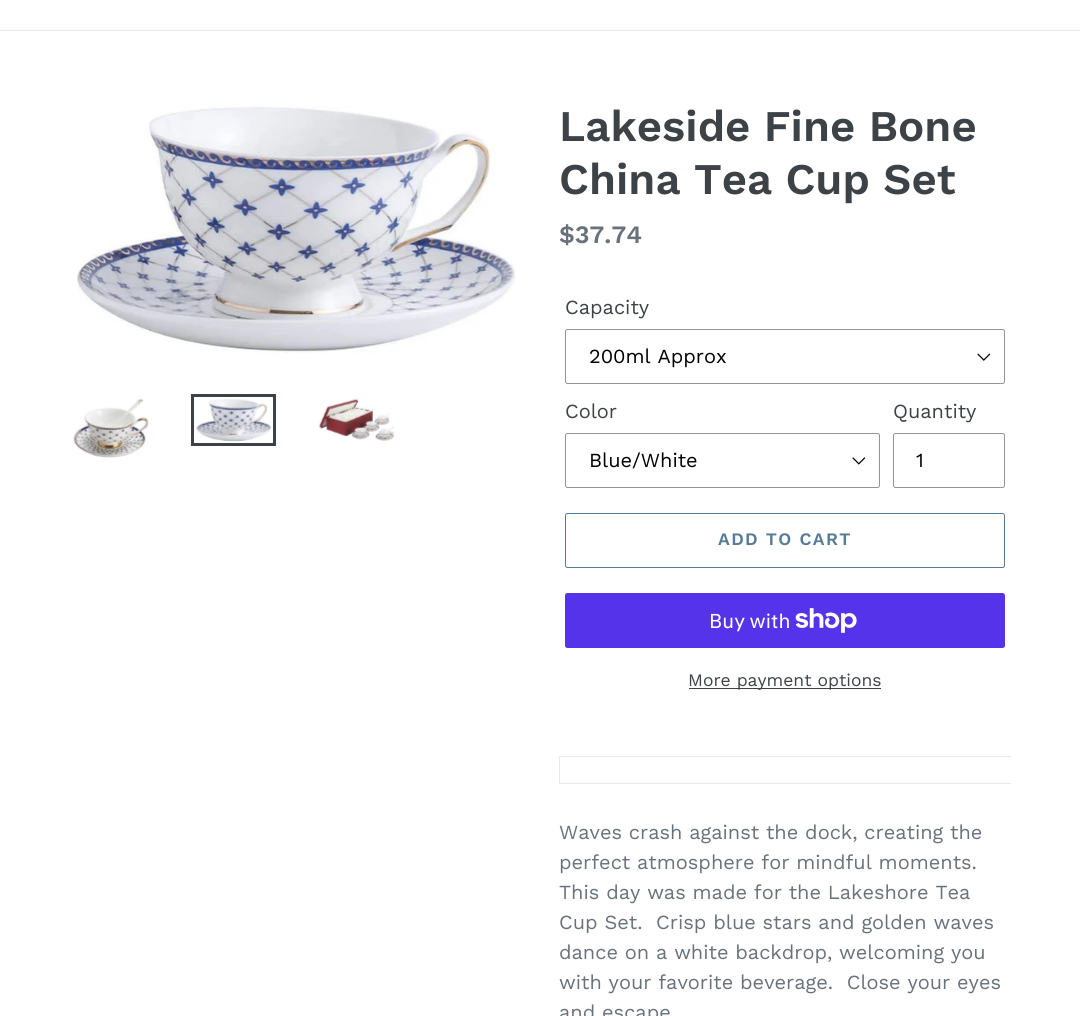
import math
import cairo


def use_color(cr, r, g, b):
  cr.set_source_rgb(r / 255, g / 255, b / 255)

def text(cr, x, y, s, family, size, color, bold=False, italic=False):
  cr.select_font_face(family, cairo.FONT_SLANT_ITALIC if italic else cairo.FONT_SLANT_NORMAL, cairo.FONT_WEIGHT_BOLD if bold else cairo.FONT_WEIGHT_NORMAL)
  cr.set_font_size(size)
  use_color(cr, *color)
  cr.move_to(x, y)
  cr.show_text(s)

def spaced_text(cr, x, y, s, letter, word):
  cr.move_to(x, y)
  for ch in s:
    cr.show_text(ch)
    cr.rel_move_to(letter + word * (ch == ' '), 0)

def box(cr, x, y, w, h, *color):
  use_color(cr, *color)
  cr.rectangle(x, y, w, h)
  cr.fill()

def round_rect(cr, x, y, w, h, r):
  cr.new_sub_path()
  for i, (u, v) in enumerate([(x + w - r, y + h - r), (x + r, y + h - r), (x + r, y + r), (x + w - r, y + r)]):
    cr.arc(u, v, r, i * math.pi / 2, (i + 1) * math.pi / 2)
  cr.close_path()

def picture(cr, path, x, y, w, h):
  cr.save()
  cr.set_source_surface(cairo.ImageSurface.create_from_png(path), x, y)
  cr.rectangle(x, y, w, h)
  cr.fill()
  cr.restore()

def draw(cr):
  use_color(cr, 255, 255, 255)
  cr.paint()
  box(cr, 0, 30, 1080, 1, 232, 233, 235)
  picture(cr, "img_01.png", 77, 106, 439, 248)
  picture(cr, "img_02.png", 73, 398, 76, 60)
  cr.rectangle(192.5, 395.5, 82, 49)
  use_color(cr, 61, 66, 70)
  cr.set_line_width(3)
  cr.stroke()
  picture(cr, "img_03.png", 196, 399, 76, 43)
  picture(cr, "img_04.png", 318, 398, 76, 43)
  picture(cr, "img_05.png", 977, 353, 14, 8)
  round_rect(cr, 565.5, 329.5, 439, 54, 2)
  use_color(cr, 148, 148, 148)
  cr.set_line_width(1)
  cr.stroke()
  picture(cr, "img_06.png", 852, 457, 14, 8)
  round_rect(cr, 565.5, 433.5, 314, 54, 2)
  cr.stroke()
  round_rect(cr, 893.5, 433.5, 111, 54, 2)
  cr.stroke()
  round_rect(cr, 565.5, 513.5, 439, 54, 2)
  use_color(cr, 85, 123, 151)
  cr.stroke()
  use_color(cr, 84, 51, 235)
  round_rect(cr, 565, 593, 440, 55, 2.5)
  cr.fill()
  picture(cr, "img_07.png", 795, 608, 62, 25)
  box(cr, 689, 688, 192, 1, 61, 66, 70)
  box(cr, 559, 756, 452, 1, 232, 233, 235)
  box(cr, 559, 783, 452, 1, 232, 233, 235)
  box(cr, 559, 756, 1, 28, 232, 233, 235)
  text(cr, 559, 141, "Lakeside Fine Bone", "Work Sans SemiBold", 43.75, (61, 66, 70))
  text(cr, 559, 194, "China Tea Cup Set", "Work Sans SemiBold", 43.75, (61, 66, 70))
  text(cr, 559, 243, "$37.74", "Work Sans SemiBold", 25, (105, 114, 123))
  text(cr, 565, 314, "Capacity", "Work Sans", 20, (61, 66, 70))
  text(cr, 589, 363, "200ml Approx", "Work Sans", 20, (0, 0, 0))
  text(cr, 565, 418, "Color", "Work Sans", 20, (61, 66, 70))
  text(cr, 589, 467, "Blue/White", "Work Sans", 20, (0, 0, 0))
  text(cr, 893, 418, "Quantity", "Work Sans", 20, (61, 66, 70))
  text(cr, 916, 467, "1", "Work Sans", 20, (0, 0, 0))
  cr.select_font_face("Work Sans SemiBold")
  cr.set_font_size(17.5)
  use_color(cr, 85, 123, 151)
  spaced_text(cr, 718, 545, "ADD TO CART", 1.4, 0)
  text(cr, 709, 628, "Buy with", "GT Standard", 20, (255, 255, 255))
  text(cr, 688, 686, "More payment options", "Work Sans", 17.5, (61, 66, 70))
  text(cr, 559, 839, "Waves crash against the dock, creating the", "Work Sans", 20, (105, 114, 123))
  text(cr, 559, 869, "perfect atmosphere for mindful moments.", "Work Sans", 20, (105, 114, 123))
  text(cr, 559, 899, "This day was made for the Lakeshore Tea", "Work Sans", 20, (105, 114, 123))
  text(cr, 559, 929, "Cup Set.  Crisp blue stars and golden waves", "Work Sans", 20, (105, 114, 123))
  text(cr, 559, 959, "dance on a white backdrop, welcoming you", "Work Sans", 20, (105, 114, 123))
  text(cr, 559, 989, "with your favorite beverage.  Close your eyes", "Work Sans", 20, (105, 114, 123))
  text(cr, 559, 1019, "and escape", "Work Sans", 20, (105, 114, 123))


surface = cairo.ImageSurface(cairo.FORMAT_RGB24, 1080, 1016)
cr = cairo.Context(surface)
options = cairo.FontOptions()
options.set_hint_metrics(cairo.HINT_METRICS_OFF)
options.set_hint_style(cairo.HINT_STYLE_NONE)
cr.set_font_options(options)
cr.set_miter_limit(4)
draw(cr)
surface.write_to_png("out.png")
